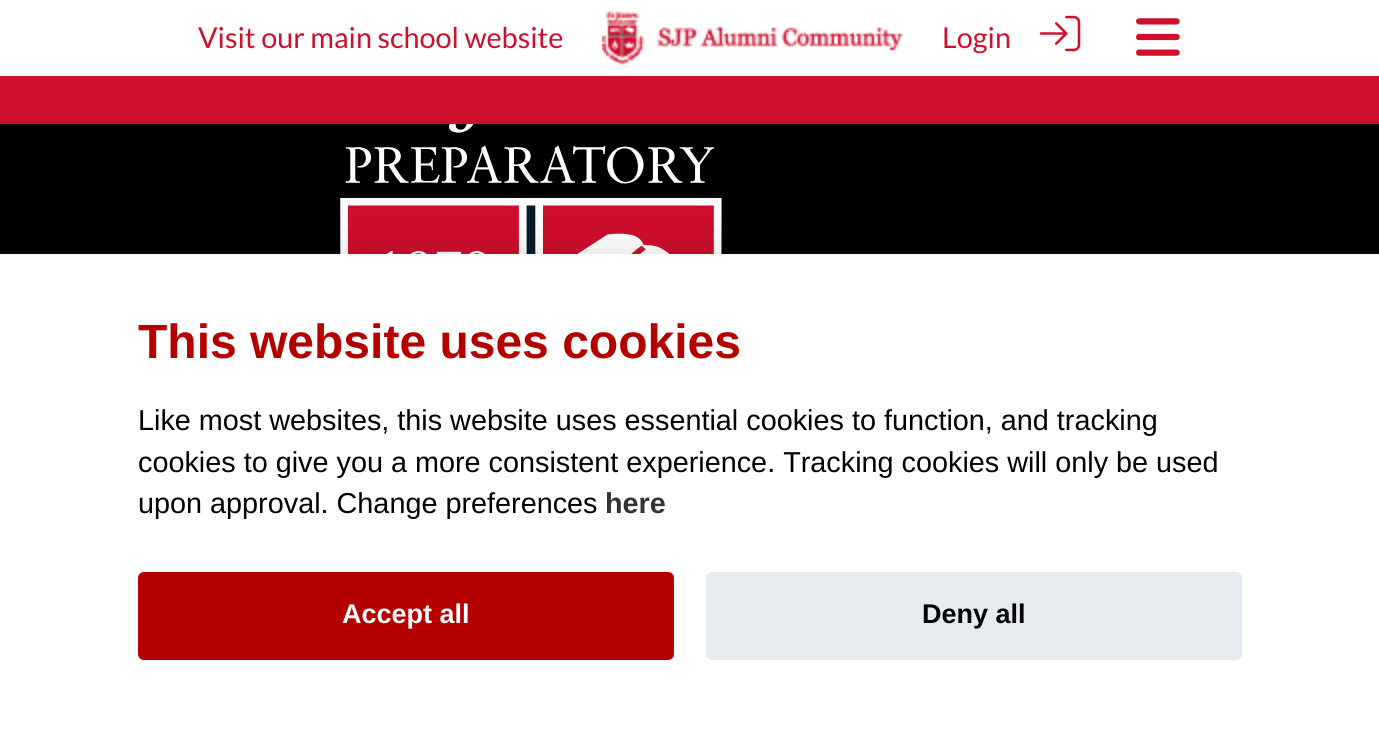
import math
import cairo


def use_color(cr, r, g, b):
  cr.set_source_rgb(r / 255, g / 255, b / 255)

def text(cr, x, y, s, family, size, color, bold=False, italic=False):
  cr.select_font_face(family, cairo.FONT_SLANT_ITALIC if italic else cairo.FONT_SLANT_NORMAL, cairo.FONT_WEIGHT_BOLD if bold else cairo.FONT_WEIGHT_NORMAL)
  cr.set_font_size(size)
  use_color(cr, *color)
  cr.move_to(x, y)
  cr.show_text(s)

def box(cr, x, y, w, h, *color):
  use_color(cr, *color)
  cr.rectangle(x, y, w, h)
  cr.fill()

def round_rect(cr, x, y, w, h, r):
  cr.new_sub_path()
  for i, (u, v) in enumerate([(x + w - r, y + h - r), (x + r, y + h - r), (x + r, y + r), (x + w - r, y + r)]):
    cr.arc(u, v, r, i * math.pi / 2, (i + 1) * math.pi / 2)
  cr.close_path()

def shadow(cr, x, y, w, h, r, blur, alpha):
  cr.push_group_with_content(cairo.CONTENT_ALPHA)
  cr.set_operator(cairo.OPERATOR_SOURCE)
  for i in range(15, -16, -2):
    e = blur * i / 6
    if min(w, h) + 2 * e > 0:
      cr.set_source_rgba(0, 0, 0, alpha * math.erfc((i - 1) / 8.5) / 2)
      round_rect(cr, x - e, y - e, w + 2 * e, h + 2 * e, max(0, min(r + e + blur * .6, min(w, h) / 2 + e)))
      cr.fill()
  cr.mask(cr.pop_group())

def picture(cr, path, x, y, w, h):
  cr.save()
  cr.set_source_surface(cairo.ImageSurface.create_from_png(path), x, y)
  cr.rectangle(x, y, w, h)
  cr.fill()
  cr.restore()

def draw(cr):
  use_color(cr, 0, 0, 0)
  cr.paint()
  box(cr, 0, 0, 1379, 76, 255, 255, 255)
  picture(cr, "img_01.png", 602, 11, 301, 54)
  picture(cr, "img_02.png", 1039, 15, 42, 37)
  picture(cr, "img_03.png", 1136, 18, 44, 38)
  box(cr, 0, 76, 1379, 48, 207, 16, 45)
  picture(cr, "img_04.png", 340, 124, 382, 130)
  use_color(cr, 2, 2, 3)
  shadow(cr, 0, 274, 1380, 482, 0, 30, 0.28)
  box(cr, 0, 254, 1379, 481, 255, 255, 255)
  use_color(cr, 181, 0, 0)
  round_rect(cr, 138, 572, 536, 88, 6)
  cr.fill()
  use_color(cr, 229, 235, 239)
  round_rect(cr, 706, 572, 536, 88, 6)
  cr.fill()
  text(cr, 198, 48, "Visit our main school website", "Lato", 28.8, (207, 16, 45))
  text(cr, 942, 48, "Login", "Lato", 28.8, (207, 16, 45))
  text(cr, 138, 358, "This website uses cookies", "Liberation Sans", 48, (181, 0, 0), bold=True)
  text(cr, 138, 430, "Like most websites, this website uses essential cookies to function, and tracking", "Liberation Sans", 28.8, (0, 0, 0))
  text(cr, 138, 472, "cookies to give you a more consistent experience. Tracking cookies will only be used", "Liberation Sans", 28.8, (0, 0, 0))
  text(cr, 138, 513, "upon approval. Change preferences", "Liberation Sans", 28.8, (0, 0, 0))
  text(cr, 605, 513, "here", "Liberation Sans", 28.8, (51, 51, 51), bold=True)
  text(cr, 342, 623, "Accept all", "Liberation Sans", 27, (255, 255, 255), bold=True)
  text(cr, 922, 623, "Deny all", "Liberation Sans", 27, (0, 0, 0), bold=True)


surface = cairo.ImageSurface(cairo.FORMAT_RGB24, 1379, 735)
cr = cairo.Context(surface)
options = cairo.FontOptions()
options.set_hint_metrics(cairo.HINT_METRICS_OFF)
options.set_hint_style(cairo.HINT_STYLE_NONE)
cr.set_font_options(options)
cr.set_miter_limit(4)
draw(cr)
surface.write_to_png("out.png")
